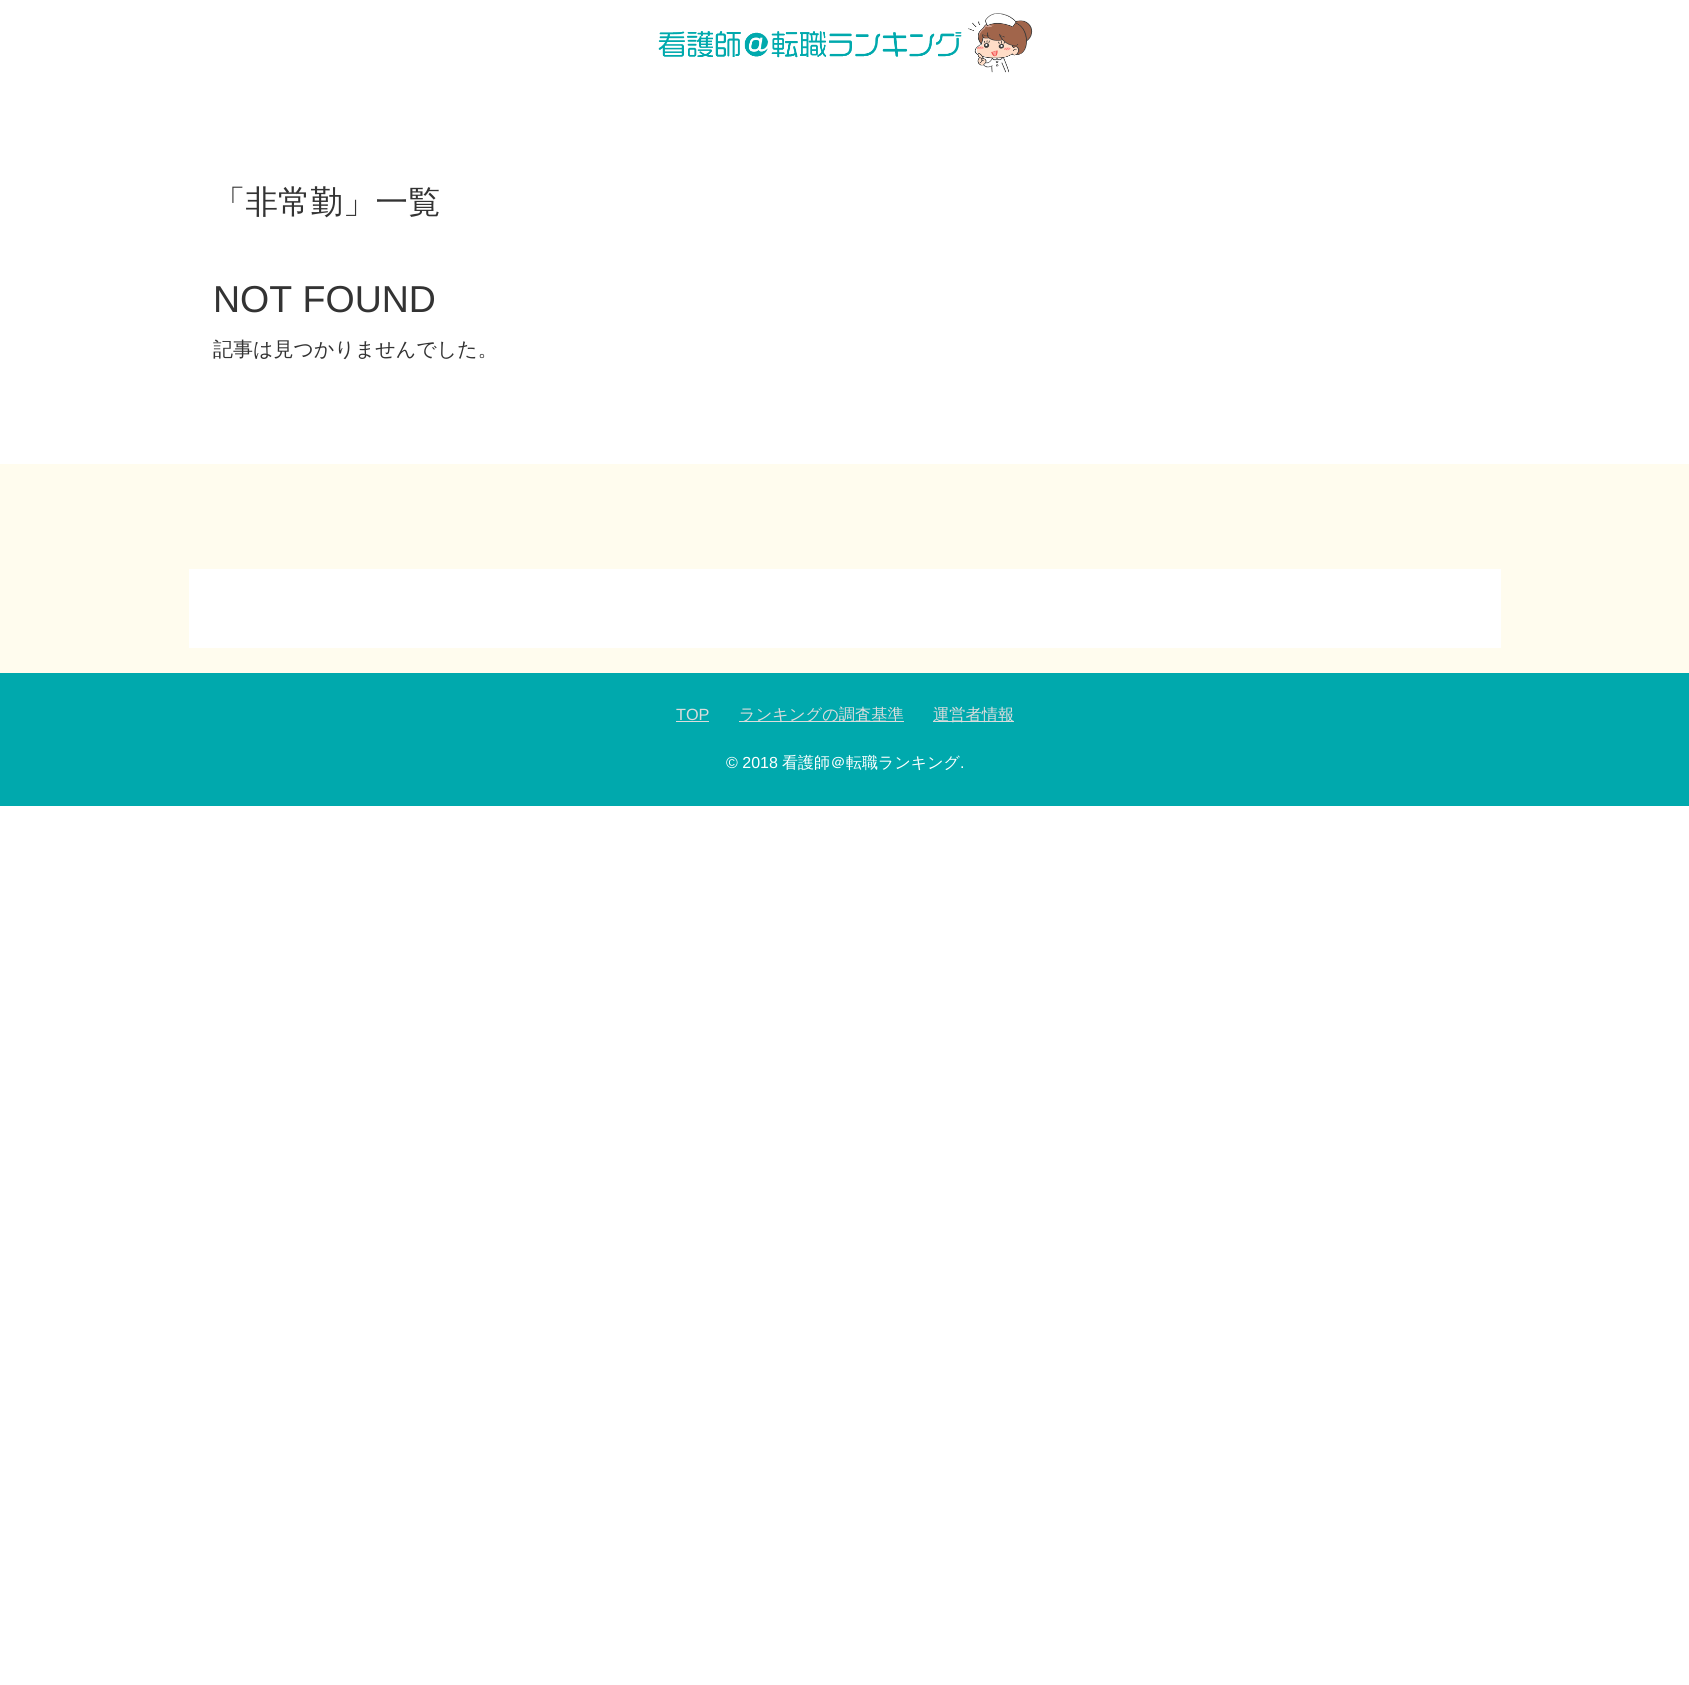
import math
import cairo


def use_color(cr, r, g, b):
  cr.set_source_rgb(r / 255, g / 255, b / 255)

def text(cr, x, y, s, family, size, color, bold=False, italic=False):
  cr.select_font_face(family, cairo.FONT_SLANT_ITALIC if italic else cairo.FONT_SLANT_NORMAL, cairo.FONT_WEIGHT_BOLD if bold else cairo.FONT_WEIGHT_NORMAL)
  cr.set_font_size(size)
  use_color(cr, *color)
  cr.move_to(x, y)
  cr.show_text(s)

def box(cr, x, y, w, h, *color):
  use_color(cr, *color)
  cr.rectangle(x, y, w, h)
  cr.fill()

def picture(cr, path, x, y, w, h):
  cr.save()
  cr.set_source_surface(cairo.ImageSurface.create_from_png(path), x, y)
  cr.rectangle(x, y, w, h)
  cr.fill()
  cr.restore()

def draw(cr):
  use_color(cr, 255, 255, 255)
  cr.paint()
  picture(cr, "img_01.png", 658, 13, 375, 60)
  box(cr, 0, 464, 1689, 209, 255, 252, 238)
  box(cr, 189, 569, 1312, 79, 255, 255, 255)
  box(cr, 0, 673, 1689, 133, 0, 169, 173)
  box(cr, 676, 721, 33, 1, 220, 220, 220)
  box(cr, 739, 721, 165, 1, 220, 220, 220)
  box(cr, 933, 721, 81, 1, 220, 220, 220)
  text(cr, 213, 213, "「非常勤」一覧", "WenQuanYi Zen Hei Medium", 32.5, (51, 51, 51))
  text(cr, 213, 312, "NOT FOUND", "Liberation Sans", 37.5, (51, 51, 51))
  text(cr, 213, 356, "記事は見つかりませんでした。", "WenQuanYi Zen Hei Medium", 20, (51, 51, 51))
  text(cr, 676, 720, "TOP", "Liberation Sans", 16.25, (220, 220, 220))
  text(cr, 739, 720, "ランキングの調査基準", "WenQuanYi Zen Hei Medium", 16.25, (220, 220, 220))
  text(cr, 933, 720, "運営者情報", "WenQuanYi Zen Hei Medium", 16.25, (220, 220, 220))
  text(cr, 726, 768, "© 2018", "Liberation Sans", 16, (255, 255, 255))
  text(cr, 782, 768, "看護師＠転職ランキング", "WenQuanYi Zen Hei Medium", 16, (255, 255, 255))
  text(cr, 960, 768, ".", "Liberation Sans", 16, (255, 255, 255))


surface = cairo.ImageSurface(cairo.FORMAT_RGB24, 1689, 1685)
cr = cairo.Context(surface)
options = cairo.FontOptions()
options.set_hint_metrics(cairo.HINT_METRICS_OFF)
options.set_hint_style(cairo.HINT_STYLE_NONE)
cr.set_font_options(options)
cr.set_miter_limit(4)
draw(cr)
surface.write_to_png("out.png")
